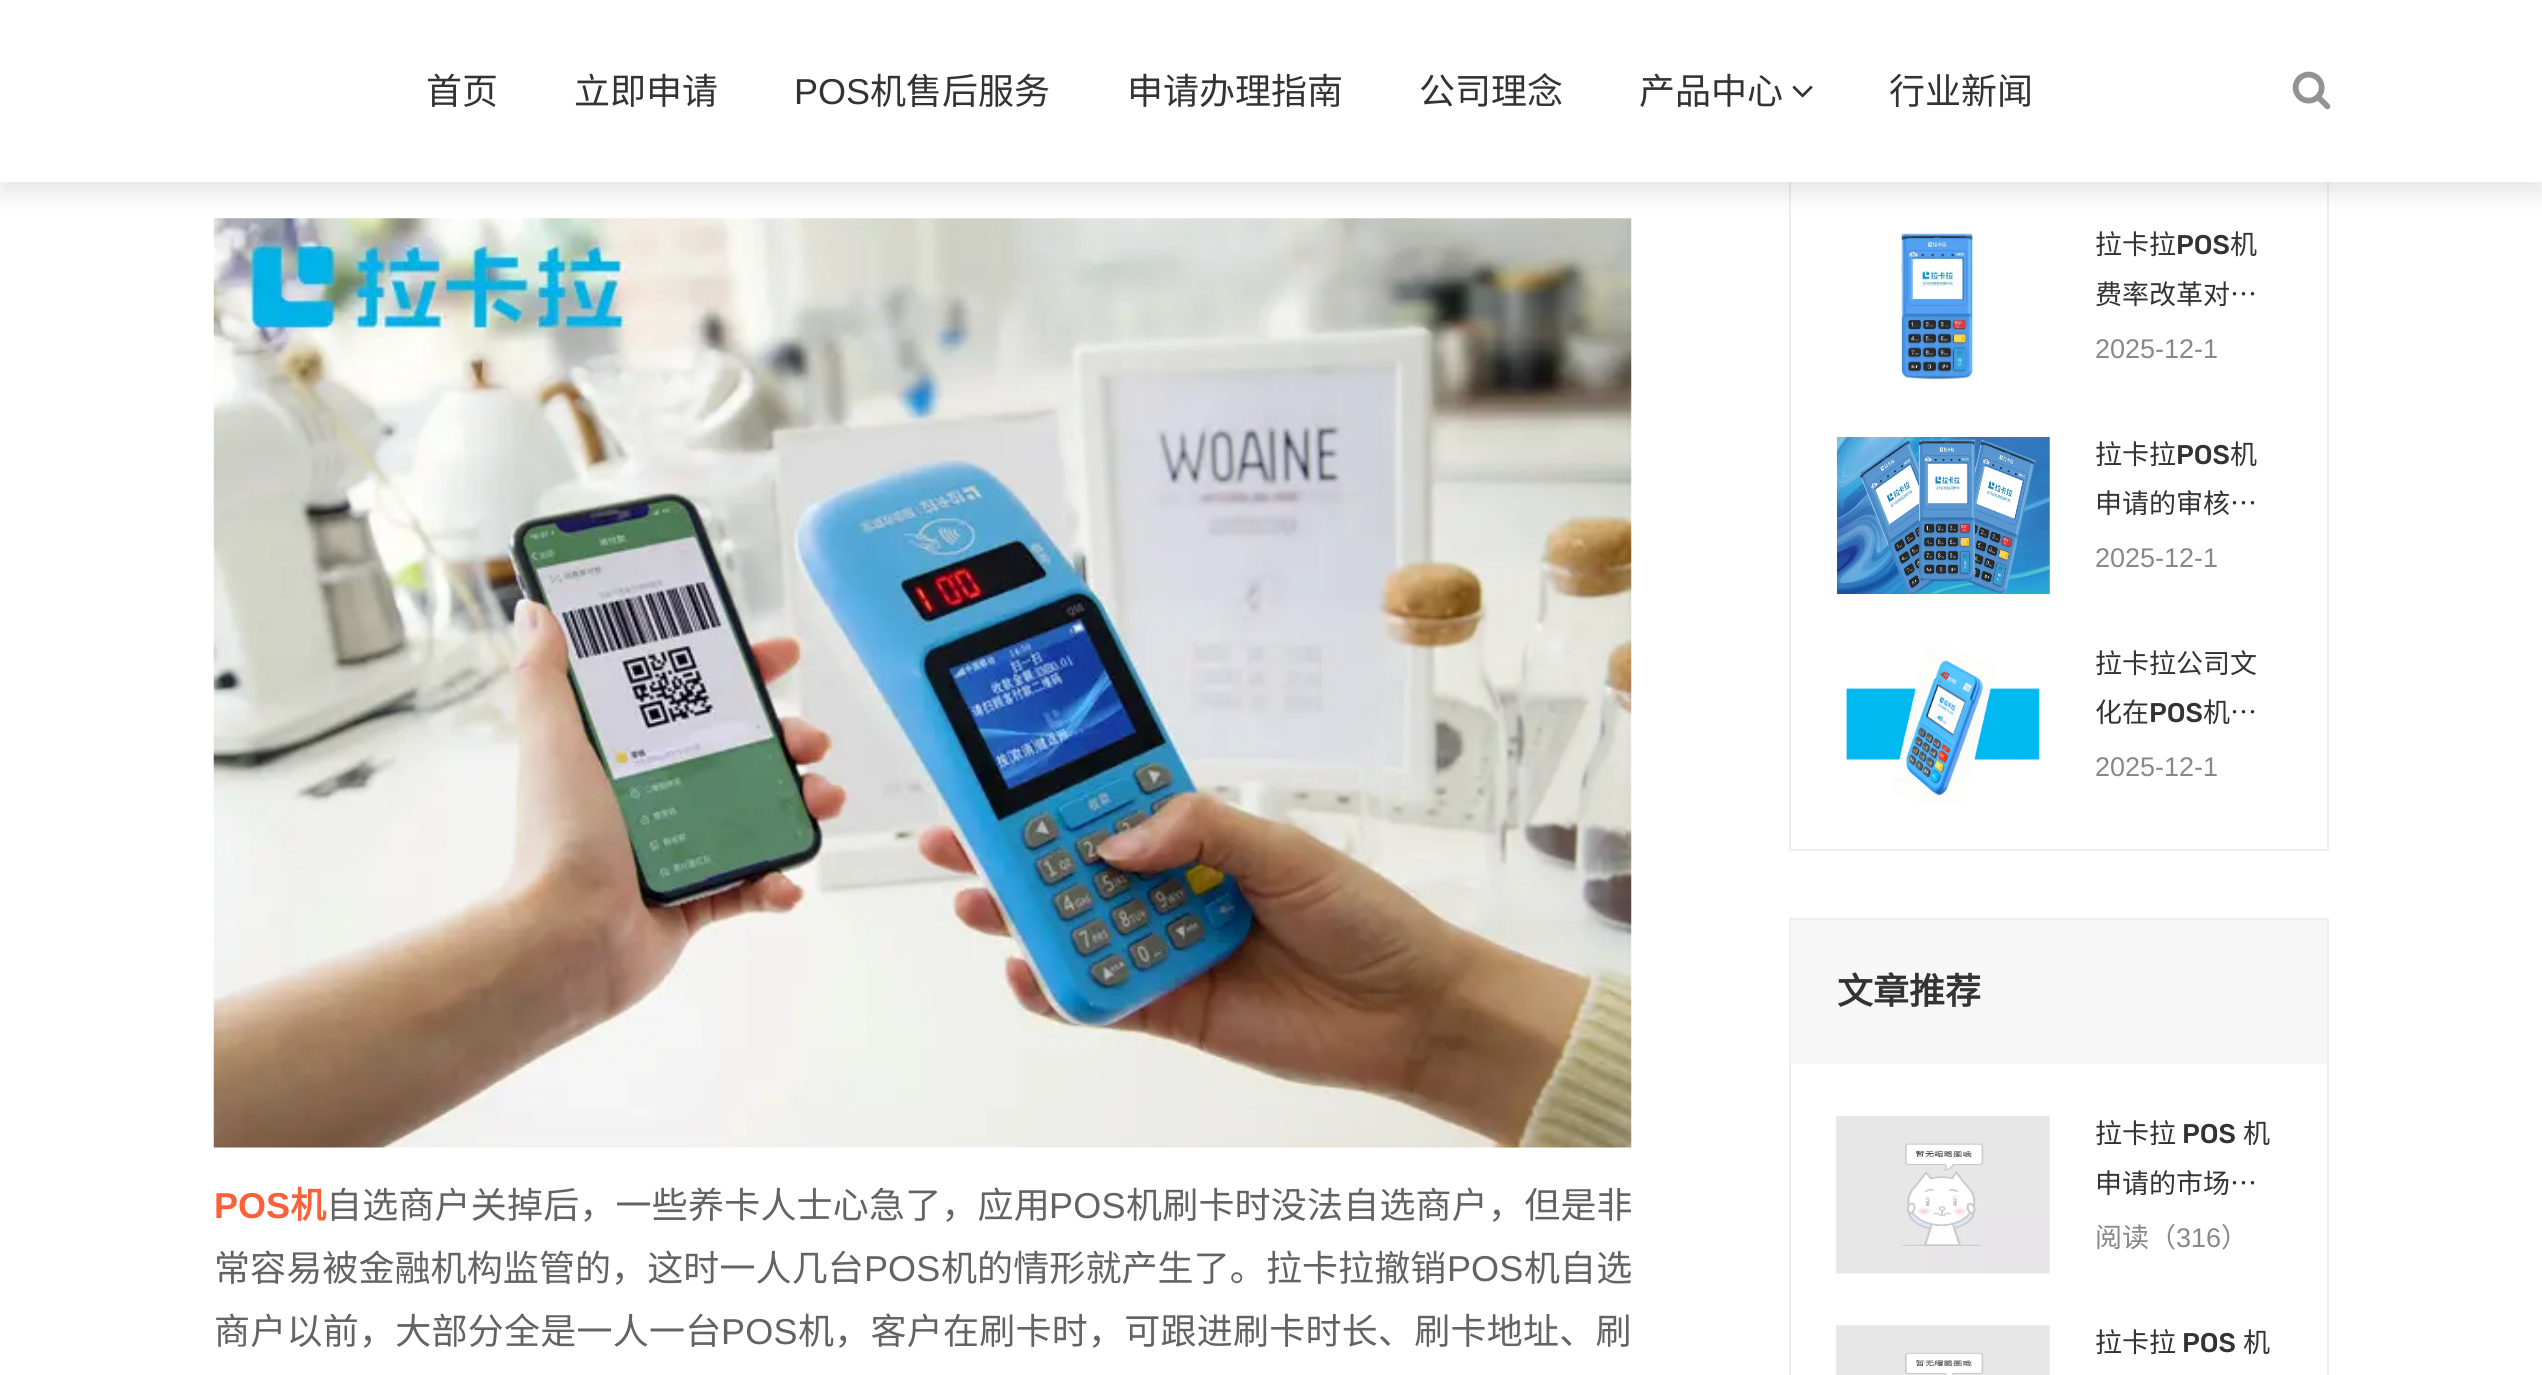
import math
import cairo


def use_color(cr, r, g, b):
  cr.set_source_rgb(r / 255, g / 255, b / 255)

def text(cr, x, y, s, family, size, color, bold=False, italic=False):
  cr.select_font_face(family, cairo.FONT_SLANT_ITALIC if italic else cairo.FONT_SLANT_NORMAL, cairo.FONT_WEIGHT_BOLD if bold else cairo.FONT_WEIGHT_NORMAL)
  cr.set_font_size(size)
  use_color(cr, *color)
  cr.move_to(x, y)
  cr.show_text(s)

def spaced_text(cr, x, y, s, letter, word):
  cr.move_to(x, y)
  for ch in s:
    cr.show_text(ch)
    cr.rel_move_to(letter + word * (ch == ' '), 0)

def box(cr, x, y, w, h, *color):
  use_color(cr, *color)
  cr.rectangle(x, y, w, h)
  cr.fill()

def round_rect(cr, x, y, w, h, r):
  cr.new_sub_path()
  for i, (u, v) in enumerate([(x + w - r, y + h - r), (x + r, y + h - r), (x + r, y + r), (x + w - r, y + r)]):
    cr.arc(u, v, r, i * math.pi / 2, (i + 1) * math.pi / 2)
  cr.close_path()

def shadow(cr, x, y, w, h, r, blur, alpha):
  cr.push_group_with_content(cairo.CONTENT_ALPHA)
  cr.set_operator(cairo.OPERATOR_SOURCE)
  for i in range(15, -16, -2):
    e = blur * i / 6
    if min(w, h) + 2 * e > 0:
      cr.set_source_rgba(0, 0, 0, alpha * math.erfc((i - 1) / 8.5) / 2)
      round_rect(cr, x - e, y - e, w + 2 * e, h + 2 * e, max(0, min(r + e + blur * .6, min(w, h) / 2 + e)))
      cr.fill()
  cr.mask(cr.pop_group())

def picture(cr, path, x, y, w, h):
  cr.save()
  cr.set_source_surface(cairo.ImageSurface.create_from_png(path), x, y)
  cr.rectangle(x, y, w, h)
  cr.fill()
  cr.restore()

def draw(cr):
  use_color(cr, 255, 255, 255)
  cr.paint()
  picture(cr, "img_03.png", 213, 218, 1419, 930)
  cr.rectangle(1790, -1, 538, 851)
  use_color(cr, 238, 238, 238)
  cr.stroke()
  use_color(cr, 0, 0, 0)
  shadow(cr, 0, 11, 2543, 183, 0, 11, 0.1)
  box(cr, 0, 0, 2542, 182, 255, 255, 255)
  picture(cr, "img_01.png", 1792, 85, 21, 13)
  picture(cr, "img_02.png", 2292, 71, 39, 39)
  picture(cr, "img_04.png", 1900, 233, 75, 149)
  picture(cr, "img_05.png", 1837, 437, 213, 157)
  picture(cr, "img_06.png", 1846, 646, 194, 157)
  cr.rectangle(1790, 919, 538, 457)
  use_color(cr, 238, 238, 238)
  cr.stroke()
  box(cr, 1791, 920, 536, 144, 247, 247, 247)
  picture(cr, "img_07.png", 1836, 1116, 214, 158)
  picture(cr, "img_08.png", 1836, 1325, 214, 50)
  text(cr, 426, 104, "首页", "Noto Sans CJK SC", 36, (51, 51, 51))
  text(cr, 574, 104, "立即申请", "Noto Sans CJK SC", 36, (51, 51, 51))
  text(cr, 794, 104, "POS", "Liberation Sans", 36, (51, 51, 51))
  text(cr, 870, 104, "机售后服务", "Noto Sans CJK SC", 36, (51, 51, 51))
  text(cr, 1127, 104, "申请办理指南", "Noto Sans CJK SC", 36, (51, 51, 51))
  text(cr, 1419, 104, "公司理念", "Noto Sans CJK SC", 36, (51, 51, 51))
  text(cr, 1639, 104, "产品中心", "Noto Sans CJK SC", 36, (51, 51, 51))
  text(cr, 1889, 104, "行业新闻", "Noto Sans CJK SC", 36, (51, 51, 51))
  text(cr, 214, 1218, "POS", "Liberation Sans", 36, (253, 95, 57), bold=True)
  text(cr, 290, 1218, "机", "Noto Sans CJK SC", 36, (253, 95, 57), bold=True)
  cr.select_font_face("Noto Sans CJK SC")
  use_color(cr, 99, 99, 99)
  spaced_text(cr, 326, 1218, "自选商户关掉后，一些养卡人士心急了，应用", 0.2, 0)
  cr.select_font_face("Liberation Sans")
  spaced_text(cr, 1049, 1218, "POS", 0.2, 0)
  cr.select_font_face("Noto Sans CJK SC")
  spaced_text(cr, 1126, 1218, "机刷卡时没法自选商户，但是非", 0.2, 0)
  spaced_text(cr, 214, 1281, "常容易被金融机构监管的，这时一人几台", 0.1, 0)
  cr.select_font_face("Liberation Sans")
  spaced_text(cr, 864, 1281, "POS", 0.1, 0)
  cr.select_font_face("Noto Sans CJK SC")
  spaced_text(cr, 941, 1281, "机的情形就产生了。拉卡拉撤销", 0.1, 0)
  cr.select_font_face("Liberation Sans")
  spaced_text(cr, 1447, 1281, "POS", 0.1, 0)
  cr.select_font_face("Noto Sans CJK SC")
  spaced_text(cr, 1524, 1281, "机自选", 0.1, 0)
  spaced_text(cr, 214, 1344, "商户以前，大部分全是一人一台", 0.25, 0)
  cr.select_font_face("Liberation Sans")
  spaced_text(cr, 721, 1344, "POS", 0.25, 0)
  cr.select_font_face("Noto Sans CJK SC")
  spaced_text(cr, 798, 1344, "机，客户在刷卡时，可跟进刷卡时长、刷卡地址、刷", 0.25, 0)
  text(cr, 2095, 254, "拉卡拉", "Noto Sans CJK SC", 27, (51, 51, 51))
  text(cr, 2176, 254, "POS", "Rubik Medium", 27, (51, 51, 51))
  text(cr, 2230, 254, "机", "Noto Sans CJK SC", 27, (51, 51, 51))
  text(cr, 2095, 304, "费率改革对…", "Noto Sans CJK SC", 27, (51, 51, 51))
  text(cr, 2095, 358, "2025-12-1", "Liberation Sans", 27, (136, 136, 136))
  text(cr, 2095, 464, "拉卡拉", "Noto Sans CJK SC", 27, (51, 51, 51))
  text(cr, 2176, 464, "POS", "Rubik Medium", 27, (51, 51, 51))
  text(cr, 2230, 464, "机", "Noto Sans CJK SC", 27, (51, 51, 51))
  text(cr, 2095, 513, "申请的审核…", "Noto Sans CJK SC", 27, (51, 51, 51))
  text(cr, 2095, 567, "2025-12-1", "Liberation Sans", 27, (136, 136, 136))
  text(cr, 2095, 673, "拉卡拉公司文", "Noto Sans CJK SC", 27, (51, 51, 51))
  text(cr, 2095, 722, "化在", "Noto Sans CJK SC", 27, (51, 51, 51))
  text(cr, 2149, 722, "POS", "Rubik Medium", 27, (51, 51, 51))
  text(cr, 2203, 722, "机…", "Noto Sans CJK SC", 27, (51, 51, 51))
  text(cr, 2095, 776, "2025-12-1", "Liberation Sans", 27, (136, 136, 136))
  text(cr, 1837, 1004, "文章推荐", "Noto Sans CJK SC", 36, (51, 51, 51), bold=True)
  text(cr, 2095, 1143, "拉卡拉", "Noto Sans CJK SC", 27, (51, 51, 51))
  text(cr, 2182, 1143, "POS", "Rubik Medium", 27, (51, 51, 51))
  text(cr, 2243, 1143, "机", "Noto Sans CJK SC", 27, (51, 51, 51))
  text(cr, 2095, 1193, "申请的市场…", "Noto Sans CJK SC", 27, (51, 51, 51))
  text(cr, 2095, 1247, "阅读（", "Noto Sans CJK SC", 27, (136, 136, 136))
  text(cr, 2176, 1247, "316", "Liberation Sans", 27, (136, 136, 136))
  text(cr, 2221, 1247, "）", "Noto Sans CJK SC", 27, (136, 136, 136))
  text(cr, 2095, 1352, "拉卡拉", "Noto Sans CJK SC", 27, (51, 51, 51))
  text(cr, 2182, 1352, "POS", "Rubik Medium", 27, (51, 51, 51))
  text(cr, 2243, 1352, "机", "Noto Sans CJK SC", 27, (51, 51, 51))


surface = cairo.ImageSurface(cairo.FORMAT_RGB24, 2542, 1375)
cr = cairo.Context(surface)
options = cairo.FontOptions()
options.set_hint_metrics(cairo.HINT_METRICS_OFF)
options.set_hint_style(cairo.HINT_STYLE_NONE)
cr.set_font_options(options)
cr.set_miter_limit(4)
draw(cr)
surface.write_to_png("out.png")
